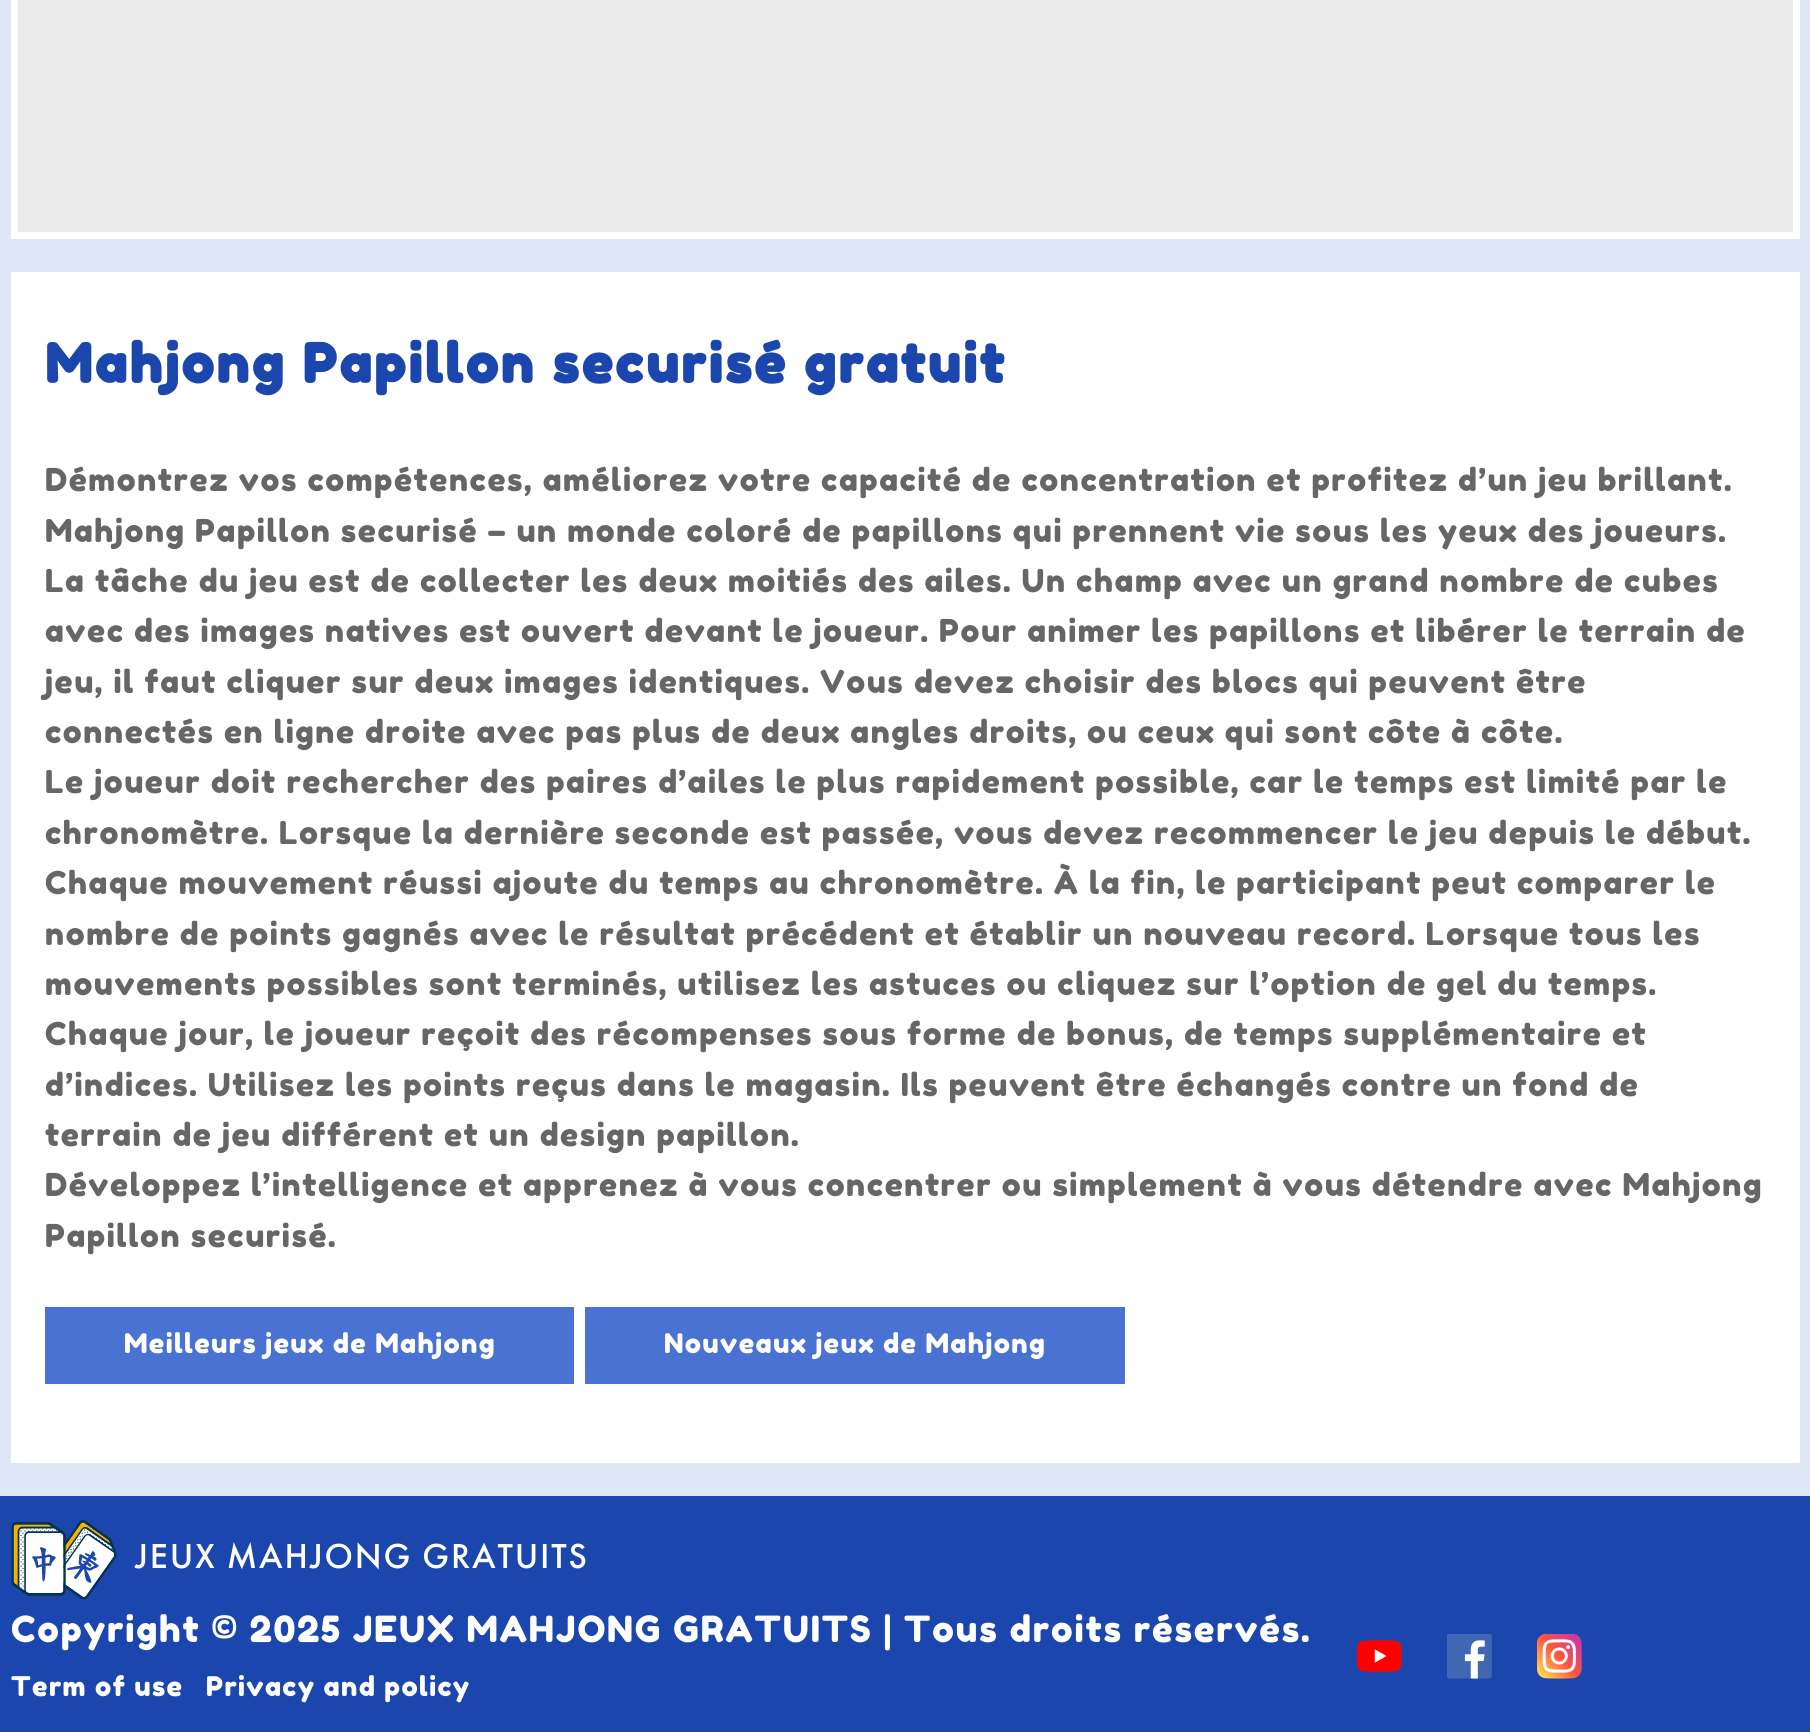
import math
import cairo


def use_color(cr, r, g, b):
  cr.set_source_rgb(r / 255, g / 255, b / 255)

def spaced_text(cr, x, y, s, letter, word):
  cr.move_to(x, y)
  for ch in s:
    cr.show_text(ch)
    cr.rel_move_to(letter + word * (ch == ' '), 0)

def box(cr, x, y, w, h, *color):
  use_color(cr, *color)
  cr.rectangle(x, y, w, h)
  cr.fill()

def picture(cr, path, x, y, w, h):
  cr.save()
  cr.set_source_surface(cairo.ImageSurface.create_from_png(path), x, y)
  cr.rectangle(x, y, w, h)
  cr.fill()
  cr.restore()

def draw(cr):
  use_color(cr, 223, 231, 246)
  cr.paint()
  box(cr, 11, 0, 1789, 239, 255, 255, 255)
  box(cr, 18, 0, 1775, 232, 234, 234, 234)
  box(cr, 11, 272, 1789, 1191, 255, 255, 255)
  box(cr, 45, 1307, 529, 77, 74, 114, 211)
  box(cr, 585, 1307, 540, 77, 74, 114, 211)
  box(cr, 0, 1496, 1810, 236, 27, 70, 174)
  picture(cr, "img_01.png", 11, 1520, 106, 80)
  picture(cr, "img_02.png", 1357, 1640, 45, 32)
  picture(cr, "img_03.png", 1447, 1634, 45, 45)
  picture(cr, "img_04.png", 1537, 1634, 45, 45)
  cr.select_font_face("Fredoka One", cairo.FONT_SLANT_NORMAL, cairo.FONT_WEIGHT_BOLD)
  cr.set_font_size(54)
  spaced_text(cr, 45, 383, "Mahjong Papillon securisé gratuit", 2.7, 0)
  cr.select_font_face("Fredoka One")
  cr.set_font_size(31.5)
  use_color(cr, 102, 102, 102)
  spaced_text(cr, 45, 491, "Démontrez vos compétences, améliorez votre capacité de concentration et profitez d’un jeu brillant.", 1.57, 0)
  spaced_text(cr, 45, 542, "Mahjong Papillon securisé – un monde coloré de papillons qui prennent vie sous les yeux des joueurs.", 1.57, 0)
  spaced_text(cr, 45, 592, "La tâche du jeu est de collecter les deux moitiés des ailes. Un champ avec un grand nombre de cubes", 1.57, 0)
  spaced_text(cr, 45, 642, "avec des images natives est ouvert devant le joueur. Pour animer les papillons et libérer le terrain de", 1.57, 0)
  spaced_text(cr, 45, 693, "jeu, il faut cliquer sur deux images identiques. Vous devez choisir des blocs qui peuvent être", 1.57, 0)
  spaced_text(cr, 45, 743, "connectés en ligne droite avec pas plus de deux angles droits, ou ceux qui sont côte à côte.", 1.57, 0)
  spaced_text(cr, 45, 793, "Le joueur doit rechercher des paires d’ailes le plus rapidement possible, car le temps est limité par le", 1.57, 0)
  spaced_text(cr, 45, 844, "chronomètre. Lorsque la dernière seconde est passée, vous devez recommencer le jeu depuis le début.", 1.57, 0)
  spaced_text(cr, 45, 894, "Chaque mouvement réussi ajoute du temps au chronomètre. À la fin, le participant peut comparer le", 1.57, 0)
  spaced_text(cr, 45, 945, "nombre de points gagnés avec le résultat précédent et établir un nouveau record. Lorsque tous les", 1.57, 0)
  spaced_text(cr, 45, 995, "mouvements possibles sont terminés, utilisez les astuces ou cliquez sur l’option de gel du temps.", 1.57, 0)
  spaced_text(cr, 45, 1045, "Chaque jour, le joueur reçoit des récompenses sous forme de bonus, de temps supplémentaire et", 1.57, 0)
  spaced_text(cr, 45, 1096, "d’indices. Utilisez les points reçus dans le magasin. Ils peuvent être échangés contre un fond de", 1.57, 0)
  spaced_text(cr, 45, 1146, "terrain de jeu différent et un design papillon.", 1.57, 0)
  spaced_text(cr, 45, 1196, "Développez l’intelligence et apprenez à vous concentrer ou simplement à vous détendre avec Mahjong", 1.57, 0)
  spaced_text(cr, 45, 1247, "Papillon securisé.", 1.57, 0)
  cr.set_font_size(27)
  use_color(cr, 255, 255, 255)
  spaced_text(cr, 124, 1353, "Meilleurs jeux de Mahjong", 1.35, 0)
  spaced_text(cr, 664, 1353, "Nouveaux jeux de Mahjong", 1.35, 0)
  cr.select_font_face("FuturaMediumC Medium")
  cr.set_font_size(36)
  spaced_text(cr, 135, 1568, "JEUX MAHJONG GRATUITS", 1.8, 0)
  cr.select_font_face("Fredoka One")
  spaced_text(cr, 11, 1642, "Copyright © 2025 JEUX MAHJONG GRATUITS | Tous droits réservés.", 1.8, 0)
  cr.set_font_size(27)
  spaced_text(cr, 11, 1696, "Term of use", 1.35, 0)
  spaced_text(cr, 206, 1696, "Privacy and policy", 1.35, 0)


surface = cairo.ImageSurface(cairo.FORMAT_RGB24, 1810, 1732)
cr = cairo.Context(surface)
options = cairo.FontOptions()
options.set_hint_metrics(cairo.HINT_METRICS_OFF)
options.set_hint_style(cairo.HINT_STYLE_NONE)
cr.set_font_options(options)
cr.set_miter_limit(4)
draw(cr)
surface.write_to_png("out.png")
